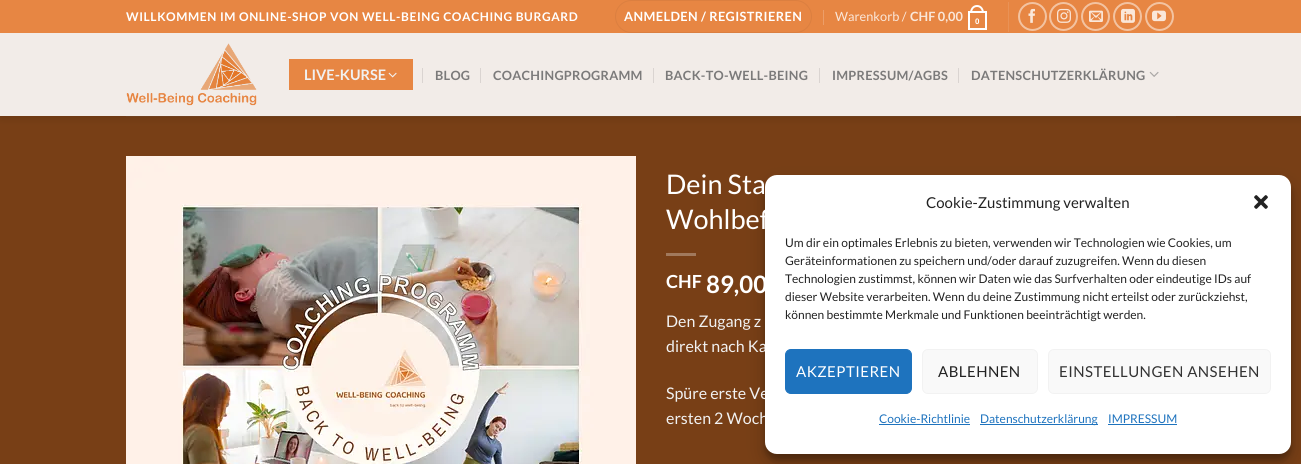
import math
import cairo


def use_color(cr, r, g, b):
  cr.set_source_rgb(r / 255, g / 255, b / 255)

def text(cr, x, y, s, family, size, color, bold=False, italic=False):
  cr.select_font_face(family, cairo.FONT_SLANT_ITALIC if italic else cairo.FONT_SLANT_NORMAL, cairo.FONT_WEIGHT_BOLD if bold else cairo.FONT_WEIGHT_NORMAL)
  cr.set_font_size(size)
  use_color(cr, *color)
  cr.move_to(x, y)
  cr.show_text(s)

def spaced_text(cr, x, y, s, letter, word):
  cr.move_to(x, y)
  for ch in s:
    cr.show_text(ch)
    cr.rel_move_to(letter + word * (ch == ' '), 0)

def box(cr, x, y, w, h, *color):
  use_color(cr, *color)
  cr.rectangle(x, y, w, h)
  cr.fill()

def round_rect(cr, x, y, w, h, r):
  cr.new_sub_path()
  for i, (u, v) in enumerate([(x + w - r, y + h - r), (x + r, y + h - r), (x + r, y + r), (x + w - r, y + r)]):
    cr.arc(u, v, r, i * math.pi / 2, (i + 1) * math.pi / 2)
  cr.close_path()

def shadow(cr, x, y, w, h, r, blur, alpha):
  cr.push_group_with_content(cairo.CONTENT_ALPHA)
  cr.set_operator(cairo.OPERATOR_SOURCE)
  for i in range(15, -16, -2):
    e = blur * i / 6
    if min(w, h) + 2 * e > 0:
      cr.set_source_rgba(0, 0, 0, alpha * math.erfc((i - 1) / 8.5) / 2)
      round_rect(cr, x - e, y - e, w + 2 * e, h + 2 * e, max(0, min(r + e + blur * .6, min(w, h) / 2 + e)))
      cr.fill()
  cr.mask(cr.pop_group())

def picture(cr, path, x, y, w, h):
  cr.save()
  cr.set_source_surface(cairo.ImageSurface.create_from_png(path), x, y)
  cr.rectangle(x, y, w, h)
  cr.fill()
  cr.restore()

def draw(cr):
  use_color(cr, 120, 63, 22)
  cr.paint()
  use_color(cr, 0, 0, 0)
  shadow(cr, 1, 1, 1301, 116, 0, 5, 0.15)
  box(cr, 0, 0, 1301, 33, 231, 134, 67)
  round_rect(cr, 615.5, 0.5, 196, 32, 16)
  use_color(cr, 219, 127, 64)
  cr.set_line_width(1)
  cr.stroke()
  box(cr, 823, 10, 1, 15, 236, 158, 105)
  cr.rectangle(969, 12, 17, 17)
  use_color(cr, 255, 255, 255)
  cr.set_line_width(2)
  cr.stroke()
  cr.set_fill_rule(cairo.FILL_RULE_EVEN_ODD)
  cr.new_path()
  cr.move_to(977, 5)
  cr.curve_to(981.5, 5, 984, 9, 984, 13)
  cr.line_to(970, 13)
  cr.curve_to(970, 9, 972.5, 5, 977, 5)
  cr.close_path()
  cr.move_to(977, 7)
  cr.curve_to(980.5, 7, 982, 10, 982, 13)
  cr.line_to(972, 13)
  cr.curve_to(972, 10, 973.5, 7, 977, 7)
  cr.close_path()
  cr.fill()
  box(cr, 1008, 2, 1, 30, 233, 146, 86)
  cr.arc(1032.5, 16.5, 13.5, 0, 2 * math.pi)
  use_color(cr, 243, 195, 161)
  cr.stroke()
  picture(cr, "img_01.png", 1028, 8, 7, 15)
  cr.arc(1063.5, 16.5, 13.5, 0, 2 * math.pi)
  cr.stroke()
  picture(cr, "img_02.png", 1057, 8, 14, 15)
  cr.arc(1095.5, 16.5, 13.5, 0, 2 * math.pi)
  cr.stroke()
  picture(cr, "img_03.png", 1089, 10, 14, 12)
  cr.arc(1127.5, 16.5, 13.5, 0, 2 * math.pi)
  cr.stroke()
  picture(cr, "img_04.png", 1121, 8, 14, 15)
  cr.arc(1159.5, 16.5, 13.5, 0, 2 * math.pi)
  cr.stroke()
  picture(cr, "img_05.png", 1152, 10, 14, 12)
  box(cr, 0, 33, 1301, 83, 242, 236, 232)
  picture(cr, "img_06.png", 126, 43, 131, 63)
  box(cr, 289, 59, 124, 31, 231, 134, 67)
  picture(cr, "img_07.png", 388, 72, 9, 6)
  box(cr, 422, 68, 1, 15, 218, 212, 209)
  box(cr, 480, 68, 1, 15, 218, 212, 209)
  box(cr, 653, 68, 1, 15, 218, 212, 209)
  box(cr, 819, 68, 1, 15, 218, 212, 209)
  box(cr, 958, 68, 1, 15, 218, 212, 209)
  picture(cr, "img_08.png", 1149, 71, 10, 6)
  box(cr, 126, 116, 1050, 1, 111, 64, 30)
  picture(cr, "img_09.png", 126, 156, 510, 308)
  box(cr, 666, 253, 30, 3, 161, 121, 92)
  use_color(cr, 0, 0, 0)
  shadow(cr, 765, 181, 526, 279, 12, 3, 0.23)
  shadow(cr, 765, 185, 526, 279, 12, 10, 0.19)
  cr.select_font_face("Lato", cairo.FONT_SLANT_NORMAL, cairo.FONT_WEIGHT_BOLD)
  cr.set_font_size(12)
  use_color(cr, 255, 255, 255)
  spaced_text(cr, 126, 21, "WILLKOMMEN IM ONLINE-SHOP VON WELL-BEING COACHING BURGARD", 0.6, 0)
  cr.set_font_size(12.75)
  spaced_text(cr, 624, 21, "ANMELDEN / REGISTRIEREN", 0.4, 0)
  text(cr, 835, 21, "Warenkorb /", "Lato", 12.75, (250, 231, 217))
  text(cr, 910, 21, "CHF 0,00", "Lato", 12.75, (250, 231, 217), bold=True)
  text(cr, 975, 24, "0", "Liberation Sans", 8, (255, 255, 255), bold=True)
  text(cr, 304, 80, "LIVE-KURSE", "Lato", 14.5, (241, 241, 241), bold=True)
  cr.set_font_size(12.75)
  use_color(cr, 123, 122, 122)
  spaced_text(cr, 435, 80, "BLOG", 0.25, 0)
  spaced_text(cr, 493, 80, "COACHINGPROGRAMM", 0.25, 0)
  spaced_text(cr, 665, 80, "BACK-TO-WELL-BEING", 0.25, 0)
  spaced_text(cr, 832, 80, "IMPRESSUM/AGBS", 0.25, 0)
  spaced_text(cr, 971, 80, "DATENSCHUTZERKLÄRUNG", 0.25, 0)
  text(cr, 666, 194, "Dein Sta", "Lato", 27, (255, 255, 255))
  text(cr, 666, 229, "Wohlbef", "Lato", 27, (255, 255, 255))
  text(cr, 666, 288, "CHF", "Lato", 18, (255, 255, 255), bold=True)
  text(cr, 706, 293, "89,00", "Lato", 24, (255, 255, 255), bold=True)
  text(cr, 666, 327, "Den Zugang z", "Lato", 16, (241, 241, 241))
  text(cr, 666, 352, "direkt nach Ka", "Lato", 16, (241, 241, 241))
  text(cr, 666, 399, "Spüre erste Ve", "Lato", 16, (241, 241, 241))
  text(cr, 666, 424, "ersten 2 Woch", "Lato", 16, (241, 241, 241))
  use_color(cr, 255, 255, 255)
  round_rect(cr, 765, 175, 526, 279, 12)
  cr.fill()
  text(cr, 926, 208, "Cookie-Zustimmung verwalten", "Lato", 15, (34, 34, 34))
  picture(cr, "img_10.png", 1254, 195, 14, 14)
  text(cr, 785, 247, "Um dir ein optimales Erlebnis zu bieten, verwenden wir Technologien wie Cookies, um", "Lato", 12, (34, 34, 34))
  text(cr, 785, 265, "Geräteinformationen zu speichern und/oder darauf zuzugreifen. Wenn du diesen", "Lato", 12, (34, 34, 34))
  text(cr, 785, 283, "Technologien zustimmst, können wir Daten wie das Surfverhalten oder eindeutige IDs auf", "Lato", 12, (34, 34, 34))
  text(cr, 785, 301, "dieser Website verarbeiten. Wenn du deine Zustimmung nicht erteilst oder zurückziehst,", "Lato", 12, (34, 34, 34))
  text(cr, 785, 319, "können bestimmte Merkmale und Funktionen beeinträchtigt werden.", "Lato", 12, (34, 34, 34))
  use_color(cr, 30, 115, 190)
  round_rect(cr, 785.5, 349.5, 126, 44, 5.5)
  cr.fill_preserve()
  cr.set_line_width(1)
  cr.stroke()
  cr.set_font_size(15)
  use_color(cr, 255, 255, 255)
  spaced_text(cr, 796, 377, "AKZEPTIEREN", 0.45, 0)
  use_color(cr, 249, 249, 249)
  round_rect(cr, 922.5, 349.5, 115, 44, 5.5)
  cr.fill_preserve()
  use_color(cr, 242, 242, 242)
  cr.stroke()
  use_color(cr, 34, 34, 34)
  spaced_text(cr, 938, 377, "ABLEHNEN", 0.45, 0)
  use_color(cr, 249, 249, 249)
  round_rect(cr, 1048.5, 349.5, 222, 44, 5.5)
  cr.fill_preserve()
  use_color(cr, 242, 242, 242)
  cr.stroke()
  use_color(cr, 51, 51, 51)
  spaced_text(cr, 1059, 377, "EINSTELLUNGEN ANSEHEN", 0.45, 0)
  text(cr, 879, 423, "Cookie-Richtlinie", "Lato", 12, (30, 115, 190))
  box(cr, 879, 424, 91, 1, 30, 115, 190)
  box(cr, 980, 424, 118, 1, 30, 115, 190)
  text(cr, 980, 423, "Datenschutzerklärung", "Lato", 12, (30, 115, 190))
  text(cr, 1108, 423, "IMPRESSUM", "Lato", 12, (30, 115, 190))
  box(cr, 1108, 424, 69, 1, 30, 115, 190)


surface = cairo.ImageSurface(cairo.FORMAT_RGB24, 1301, 464)
cr = cairo.Context(surface)
options = cairo.FontOptions()
options.set_hint_metrics(cairo.HINT_METRICS_OFF)
options.set_hint_style(cairo.HINT_STYLE_NONE)
cr.set_font_options(options)
cr.set_miter_limit(4)
draw(cr)
surface.write_to_png("out.png")
